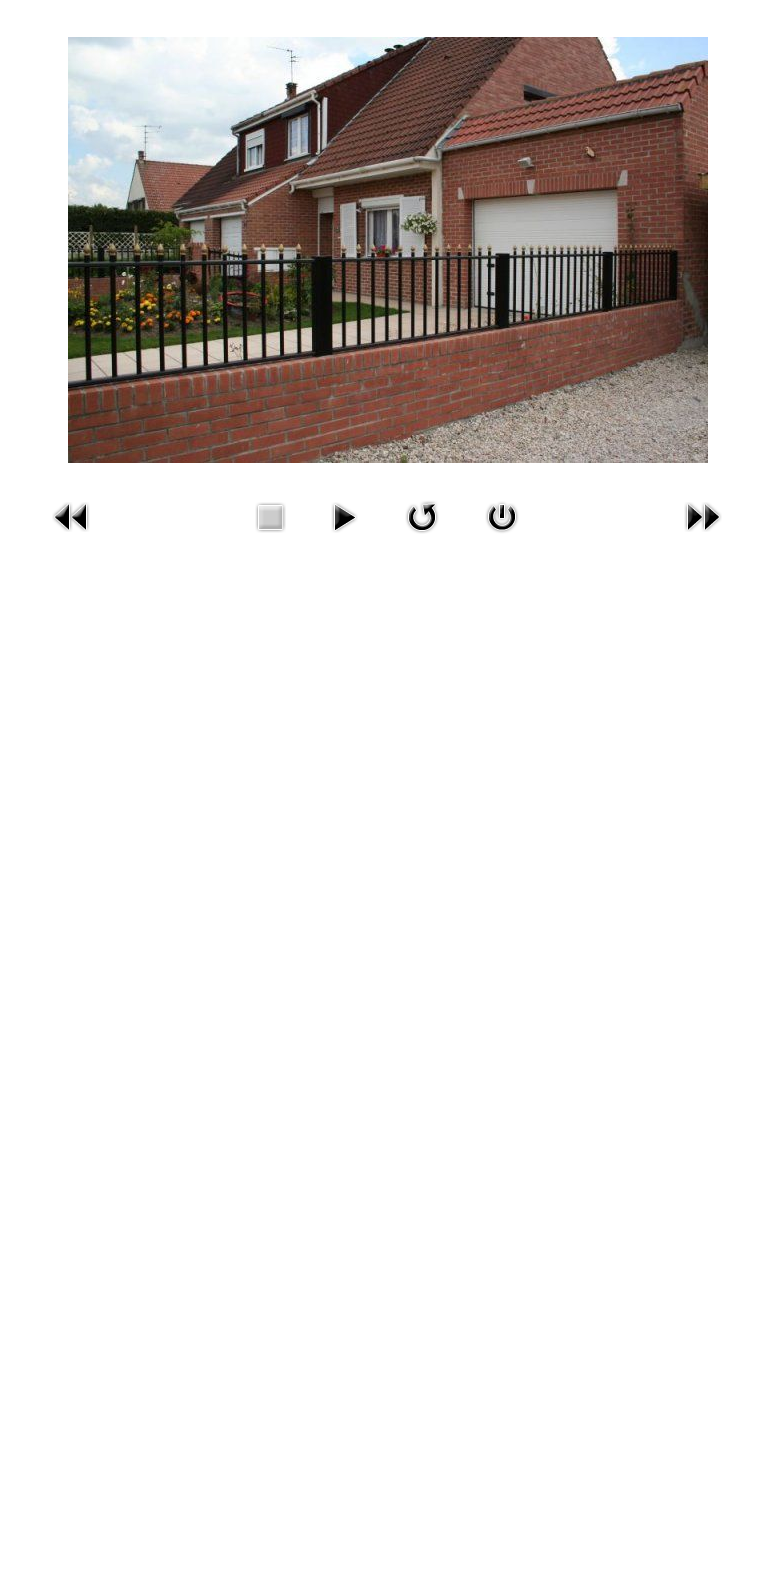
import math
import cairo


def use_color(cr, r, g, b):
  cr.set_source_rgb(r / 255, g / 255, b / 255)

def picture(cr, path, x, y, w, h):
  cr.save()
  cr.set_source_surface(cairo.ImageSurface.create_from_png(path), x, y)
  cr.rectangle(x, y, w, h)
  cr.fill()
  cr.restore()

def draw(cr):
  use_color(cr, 255, 255, 255)
  cr.paint()
  picture(cr, "img_01.png", 68, 37, 640, 426)
  picture(cr, "img_02.png", 52, 502, 38, 30)
  picture(cr, "img_03.png", 255, 502, 31, 31)
  picture(cr, "img_04.png", 331, 502, 27, 31)
  picture(cr, "img_05.png", 405, 500, 34, 34)
  picture(cr, "img_06.png", 485, 501, 34, 33)
  picture(cr, "img_07.png", 684, 502, 38, 30)


surface = cairo.ImageSurface(cairo.FORMAT_RGB24, 775, 1596)
cr = cairo.Context(surface)
options = cairo.FontOptions()
options.set_hint_metrics(cairo.HINT_METRICS_OFF)
options.set_hint_style(cairo.HINT_STYLE_NONE)
cr.set_font_options(options)
cr.set_miter_limit(4)
draw(cr)
surface.write_to_png("out.png")
